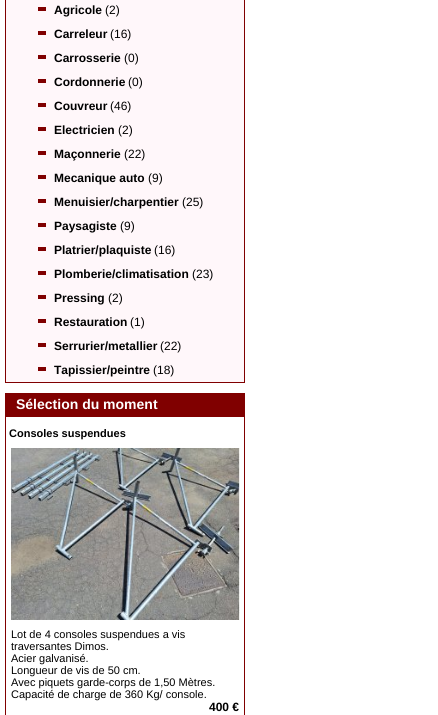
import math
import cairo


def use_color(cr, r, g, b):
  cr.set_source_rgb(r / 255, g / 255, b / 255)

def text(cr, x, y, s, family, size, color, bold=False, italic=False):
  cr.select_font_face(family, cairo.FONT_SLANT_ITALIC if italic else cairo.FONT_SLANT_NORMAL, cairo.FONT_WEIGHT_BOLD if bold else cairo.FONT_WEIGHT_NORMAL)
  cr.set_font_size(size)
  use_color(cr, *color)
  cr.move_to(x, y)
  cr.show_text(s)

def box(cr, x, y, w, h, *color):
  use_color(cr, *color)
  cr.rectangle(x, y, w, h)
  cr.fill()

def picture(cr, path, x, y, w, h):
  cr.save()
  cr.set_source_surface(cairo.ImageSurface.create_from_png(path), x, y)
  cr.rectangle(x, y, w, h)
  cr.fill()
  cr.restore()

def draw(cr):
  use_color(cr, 255, 255, 255)
  cr.paint()
  use_color(cr, 255, 247, 250)
  cr.rectangle(5.5, -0.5, 239, 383)
  cr.fill_preserve()
  use_color(cr, 128, 0, 0)
  cr.set_line_width(1)
  cr.stroke()
  box(cr, 38, 7, 8, 4, 128, 0, 0)
  box(cr, 38, 31, 8, 4, 128, 0, 0)
  box(cr, 38, 55, 8, 4, 128, 0, 0)
  box(cr, 38, 79, 8, 4, 128, 0, 0)
  box(cr, 38, 103, 8, 4, 128, 0, 0)
  box(cr, 38, 127, 8, 4, 128, 0, 0)
  box(cr, 38, 151, 8, 4, 128, 0, 0)
  box(cr, 38, 175, 8, 4, 128, 0, 0)
  box(cr, 38, 199, 8, 4, 128, 0, 0)
  box(cr, 38, 223, 8, 4, 128, 0, 0)
  box(cr, 38, 247, 8, 4, 128, 0, 0)
  box(cr, 38, 271, 8, 4, 128, 0, 0)
  box(cr, 38, 295, 8, 4, 128, 0, 0)
  box(cr, 38, 319, 8, 4, 128, 0, 0)
  box(cr, 38, 343, 8, 4, 128, 0, 0)
  box(cr, 38, 367, 8, 4, 128, 0, 0)
  cr.rectangle(5.5, 393.5, 239, 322)
  cr.stroke()
  box(cr, 6, 394, 238, 23, 128, 0, 0)
  picture(cr, "img_01.png", 11, 448, 229, 172)
  text(cr, 54, 14, "Agricole", "Liberation Sans", 12, (0, 0, 0), bold=True)
  text(cr, 105, 14, "(2)", "Liberation Sans", 12, (0, 0, 0))
  text(cr, 54, 38, "Carreleur", "Liberation Sans", 12, (0, 0, 0), bold=True)
  text(cr, 110, 38, "(16)", "Liberation Sans", 12, (0, 0, 0))
  text(cr, 54, 62, "Carrosserie", "Liberation Sans", 12, (0, 0, 0), bold=True)
  text(cr, 124, 62, "(0)", "Liberation Sans", 12, (0, 0, 0))
  text(cr, 54, 86, "Cordonnerie", "Liberation Sans", 12, (0, 0, 0), bold=True)
  text(cr, 128, 86, "(0)", "Liberation Sans", 12, (0, 0, 0))
  text(cr, 54, 110, "Couvreur", "Liberation Sans", 12, (0, 0, 0), bold=True)
  text(cr, 110, 110, "(46)", "Liberation Sans", 12, (0, 0, 0))
  text(cr, 54, 134, "Electricien", "Liberation Sans", 12, (0, 0, 0), bold=True)
  text(cr, 118, 134, "(2)", "Liberation Sans", 12, (0, 0, 0))
  text(cr, 54, 158, "Maçonnerie", "Liberation Sans", 12, (0, 0, 0), bold=True)
  text(cr, 124, 158, "(22)", "Liberation Sans", 12, (0, 0, 0))
  text(cr, 54, 182, "Mecanique auto", "Liberation Sans", 12, (0, 0, 0), bold=True)
  text(cr, 148, 182, "(9)", "Liberation Sans", 12, (0, 0, 0))
  text(cr, 54, 206, "Menuisier/charpentier", "Liberation Sans", 12, (0, 0, 0), bold=True)
  text(cr, 182, 206, "(25)", "Liberation Sans", 12, (0, 0, 0))
  text(cr, 54, 230, "Paysagiste", "Liberation Sans", 12, (0, 0, 0), bold=True)
  text(cr, 120, 230, "(9)", "Liberation Sans", 12, (0, 0, 0))
  text(cr, 54, 254, "Platrier/plaquiste", "Liberation Sans", 12, (0, 0, 0), bold=True)
  text(cr, 154, 254, "(16)", "Liberation Sans", 12, (0, 0, 0))
  text(cr, 54, 278, "Plomberie/climatisation", "Liberation Sans", 12, (0, 0, 0), bold=True)
  text(cr, 192, 278, "(23)", "Liberation Sans", 12, (0, 0, 0))
  text(cr, 54, 302, "Pressing", "Liberation Sans", 12, (0, 0, 0), bold=True)
  text(cr, 108, 302, "(2)", "Liberation Sans", 12, (0, 0, 0))
  text(cr, 54, 326, "Restauration", "Liberation Sans", 12, (0, 0, 0), bold=True)
  text(cr, 130, 326, "(1)", "Liberation Sans", 12, (0, 0, 0))
  text(cr, 54, 350, "Serrurier/metallier", "Liberation Sans", 12, (0, 0, 0), bold=True)
  text(cr, 160, 350, "(22)", "Liberation Sans", 12, (0, 0, 0))
  text(cr, 54, 374, "Tapissier/peintre", "Liberation Sans", 12, (0, 0, 0), bold=True)
  text(cr, 153, 374, "(18)", "Liberation Sans", 12, (0, 0, 0))
  text(cr, 16, 409, "Sélection du moment", "Liberation Sans", 14, (255, 255, 255), bold=True)
  text(cr, 9, 437, "Consoles suspendues", "Liberation Sans", 11, (0, 0, 0), bold=True)
  text(cr, 11, 638, "Lot de 4 consoles suspendues a vis", "Liberation Sans", 11, (0, 0, 0))
  text(cr, 11, 650, "traversantes Dimos.", "Liberation Sans", 11, (0, 0, 0))
  text(cr, 11, 662, "Acier galvanisé.", "Liberation Sans", 11, (0, 0, 0))
  text(cr, 11, 674, "Longueur de vis de 50 cm.", "Liberation Sans", 11, (0, 0, 0))
  text(cr, 11, 686, "Avec piquets garde-corps de 1,50 Mètres.", "Liberation Sans", 11, (0, 0, 0))
  text(cr, 11, 698, "Capacité de charge de 360 Kg/ console.", "Liberation Sans", 11, (0, 0, 0))
  text(cr, 209, 711, "400 €", "Liberation Sans", 12, (0, 0, 0), bold=True)


surface = cairo.ImageSurface(cairo.FORMAT_RGB24, 438, 715)
cr = cairo.Context(surface)
options = cairo.FontOptions()
options.set_hint_metrics(cairo.HINT_METRICS_OFF)
options.set_hint_style(cairo.HINT_STYLE_NONE)
cr.set_font_options(options)
cr.set_miter_limit(4)
draw(cr)
surface.write_to_png("out.png")
